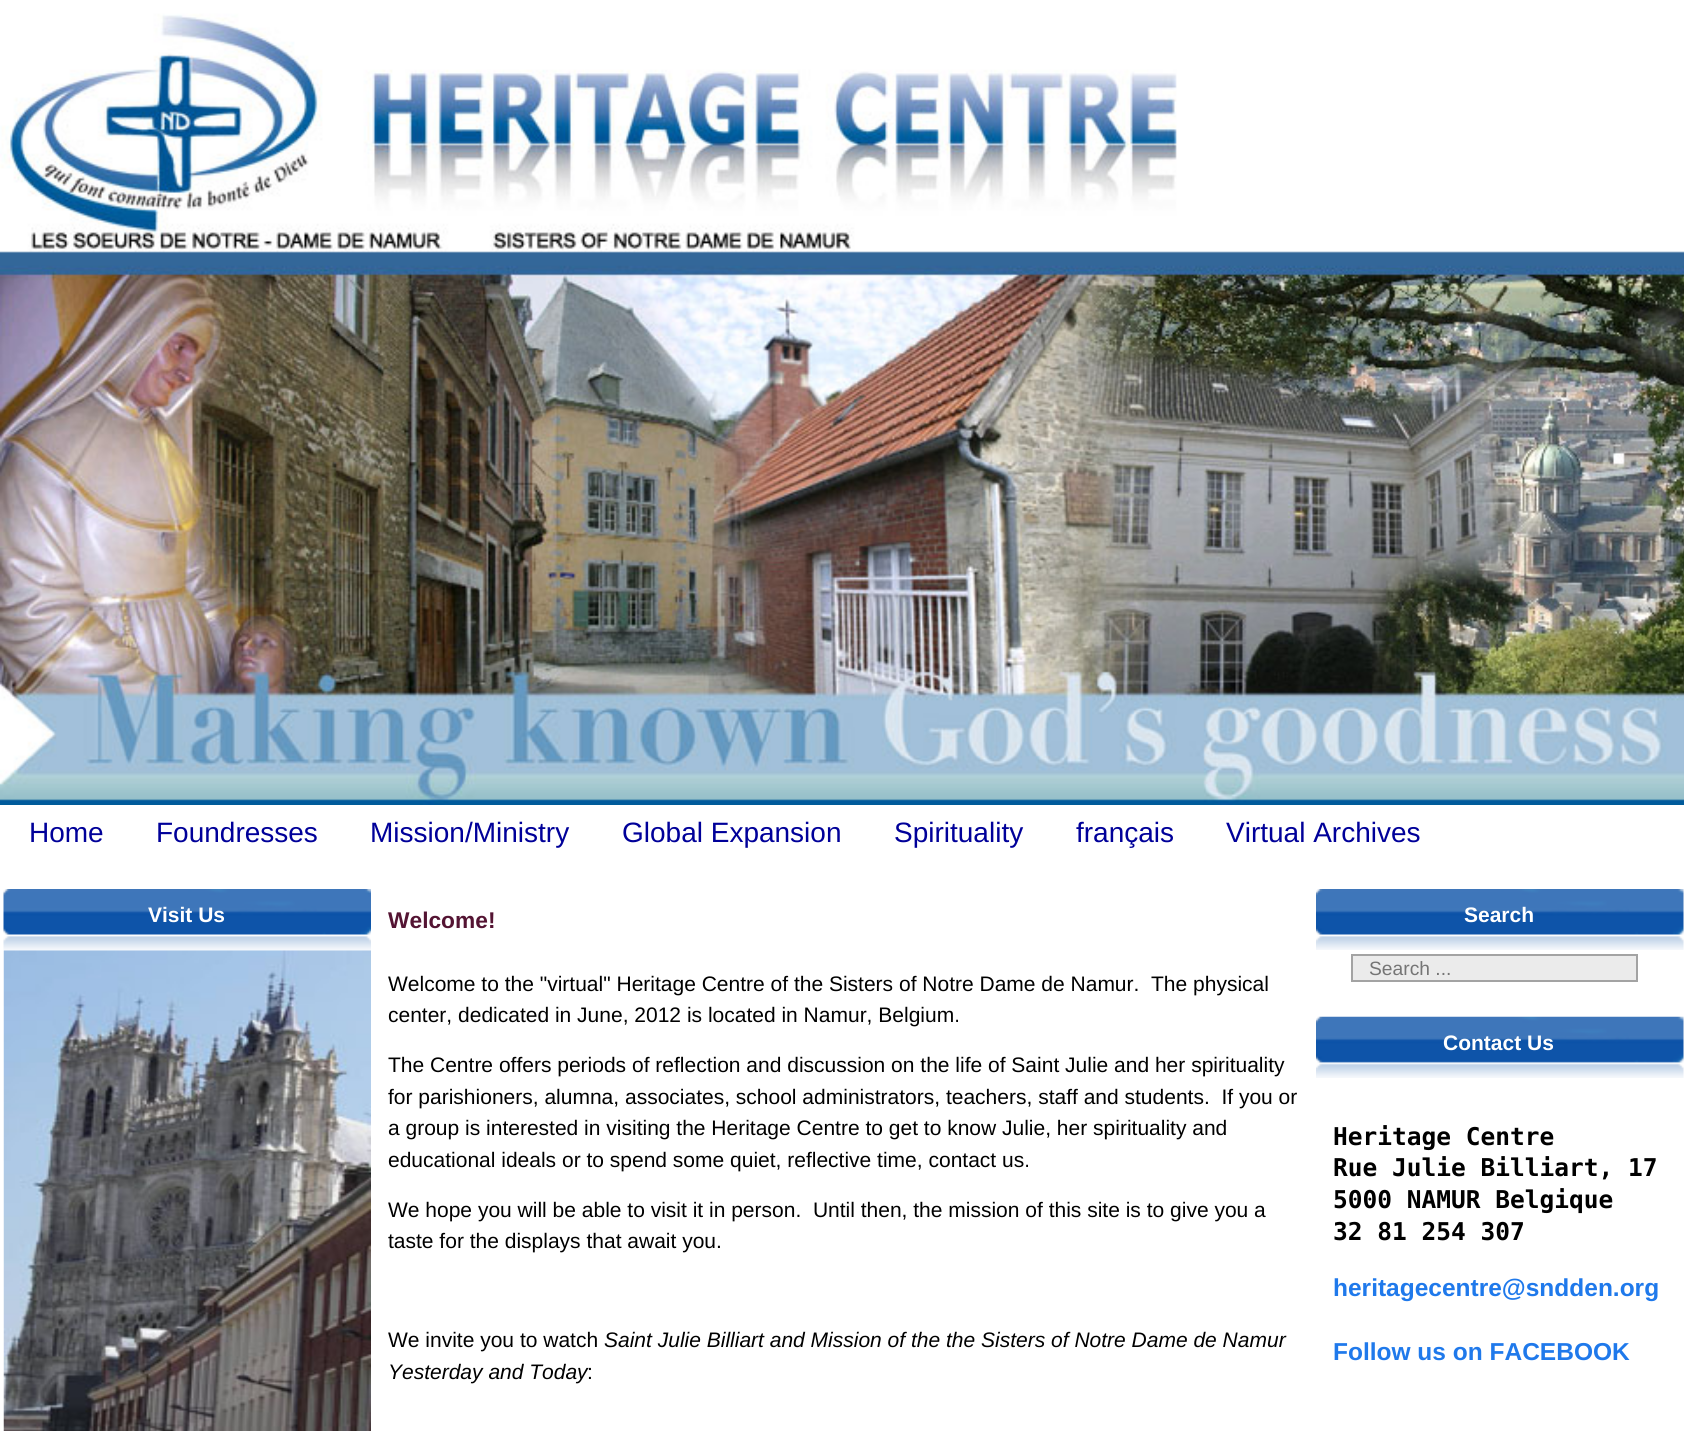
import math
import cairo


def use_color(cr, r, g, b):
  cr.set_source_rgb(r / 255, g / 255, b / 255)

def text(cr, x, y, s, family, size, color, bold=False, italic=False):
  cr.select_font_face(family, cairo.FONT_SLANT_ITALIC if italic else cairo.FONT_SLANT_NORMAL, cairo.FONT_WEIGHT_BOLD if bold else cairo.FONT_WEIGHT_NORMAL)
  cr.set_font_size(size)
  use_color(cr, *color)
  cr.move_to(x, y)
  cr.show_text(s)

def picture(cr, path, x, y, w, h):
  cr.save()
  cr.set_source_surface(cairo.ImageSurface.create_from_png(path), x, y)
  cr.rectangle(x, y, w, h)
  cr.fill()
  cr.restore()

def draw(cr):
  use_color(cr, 255, 255, 255)
  cr.paint()
  picture(cr, "img_01.png", 0, 0, 1684, 805)
  picture(cr, "img_02.png", 3, 889, 368, 61)
  picture(cr, "img_03.png", 3, 950, 368, 481)
  picture(cr, "img_04.png", 1316, 889, 368, 61)
  use_color(cr, 235, 235, 235)
  cr.rectangle(1352, 955, 285, 26)
  cr.fill_preserve()
  use_color(cr, 163, 163, 163)
  cr.stroke()
  picture(cr, "img_05.png", 1316, 1016, 368, 62)
  text(cr, 29, 842, "Home", "Liberation Sans", 28, (0, 0, 153))
  text(cr, 156, 842, "Foundresses", "Liberation Sans", 28, (0, 0, 153))
  text(cr, 370, 842, "Mission/Ministry", "Liberation Sans", 28, (0, 0, 153))
  text(cr, 622, 842, "Global Expansion", "Liberation Sans", 28, (0, 0, 153))
  text(cr, 894, 842, "Spirituality", "Liberation Sans", 28, (0, 0, 153))
  text(cr, 1076, 842, "français", "Liberation Sans", 28, (0, 0, 153))
  text(cr, 1226, 842, "Virtual Archives", "Liberation Sans", 28, (0, 0, 153))
  text(cr, 148, 922, "Visit Us", "Liberation Sans", 21, (255, 255, 255), bold=True)
  text(cr, 388, 928, "Welcome!", "Liberation Sans", 22.75, (84, 20, 51), bold=True)
  text(cr, 388, 991, "Welcome to the \"virtual\" Heritage Centre of the Sisters of Notre Dame de Namur.  The physical", "Liberation Sans", 21, (0, 0, 0))
  text(cr, 388, 1022, "center, dedicated in June, 2012 is located in Namur, Belgium.", "Liberation Sans", 21, (0, 0, 0))
  text(cr, 388, 1072, "The Centre offers periods of reflection and discussion on the life of Saint Julie and her spirituality", "Liberation Sans", 21, (0, 0, 0))
  text(cr, 388, 1104, "for parishioners, alumna, associates, school administrators, teachers, staff and students.  If you or", "Liberation Sans", 21, (0, 0, 0))
  text(cr, 388, 1135, "a group is interested in visiting the Heritage Centre to get to know Julie, her spirituality and", "Liberation Sans", 21, (0, 0, 0))
  text(cr, 388, 1167, "educational ideals or to spend some quiet, reflective time, contact us.", "Liberation Sans", 21, (0, 0, 0))
  text(cr, 388, 1217, "We hope you will be able to visit it in person.  Until then, the mission of this site is to give you a", "Liberation Sans", 21, (0, 0, 0))
  text(cr, 388, 1248, "taste for the displays that await you.", "Liberation Sans", 21, (0, 0, 0))
  text(cr, 388, 1347, "We invite you to watch", "Liberation Sans", 21, (0, 0, 0))
  text(cr, 604, 1347, "Saint Julie Billiart and Mission of the the Sisters of Notre Dame de Namur", "Liberation Sans", 21, (0, 0, 0), italic=True)
  text(cr, 388, 1379, "Yesterday and Today", "Liberation Sans", 21, (0, 0, 0), italic=True)
  text(cr, 587, 1379, ":", "Liberation Sans", 21, (0, 0, 0))
  text(cr, 1464, 922, "Search", "Liberation Sans", 21, (255, 255, 255), bold=True)
  text(cr, 1369, 975, "Search ...", "Liberation Sans", 19.25, (117, 117, 117))
  text(cr, 1443, 1050, "Contact Us", "Liberation Sans", 21, (255, 255, 255), bold=True)
  text(cr, 1333, 1145, "Heritage Centre", "DejaVu Sans Mono", 24.5, (0, 0, 0), bold=True)
  text(cr, 1333, 1176, "Rue Julie Billiart, 17", "DejaVu Sans Mono", 24.5, (0, 0, 0), bold=True)
  text(cr, 1333, 1208, "5000 NAMUR Belgique", "DejaVu Sans Mono", 24.5, (0, 0, 0), bold=True)
  text(cr, 1333, 1240, "32 81 254 307", "DejaVu Sans Mono", 24.5, (0, 0, 0), bold=True)
  text(cr, 1333, 1296, "heritagecentre@sndden.org", "Liberation Sans", 24.5, (31, 121, 235), bold=True)
  text(cr, 1333, 1360, "Follow us on FACEBOOK", "Liberation Sans", 24.5, (31, 121, 235), bold=True)


surface = cairo.ImageSurface(cairo.FORMAT_RGB24, 1684, 1431)
cr = cairo.Context(surface)
options = cairo.FontOptions()
options.set_hint_metrics(cairo.HINT_METRICS_OFF)
options.set_hint_style(cairo.HINT_STYLE_NONE)
cr.set_font_options(options)
cr.set_miter_limit(4)
draw(cr)
surface.write_to_png("out.png")
